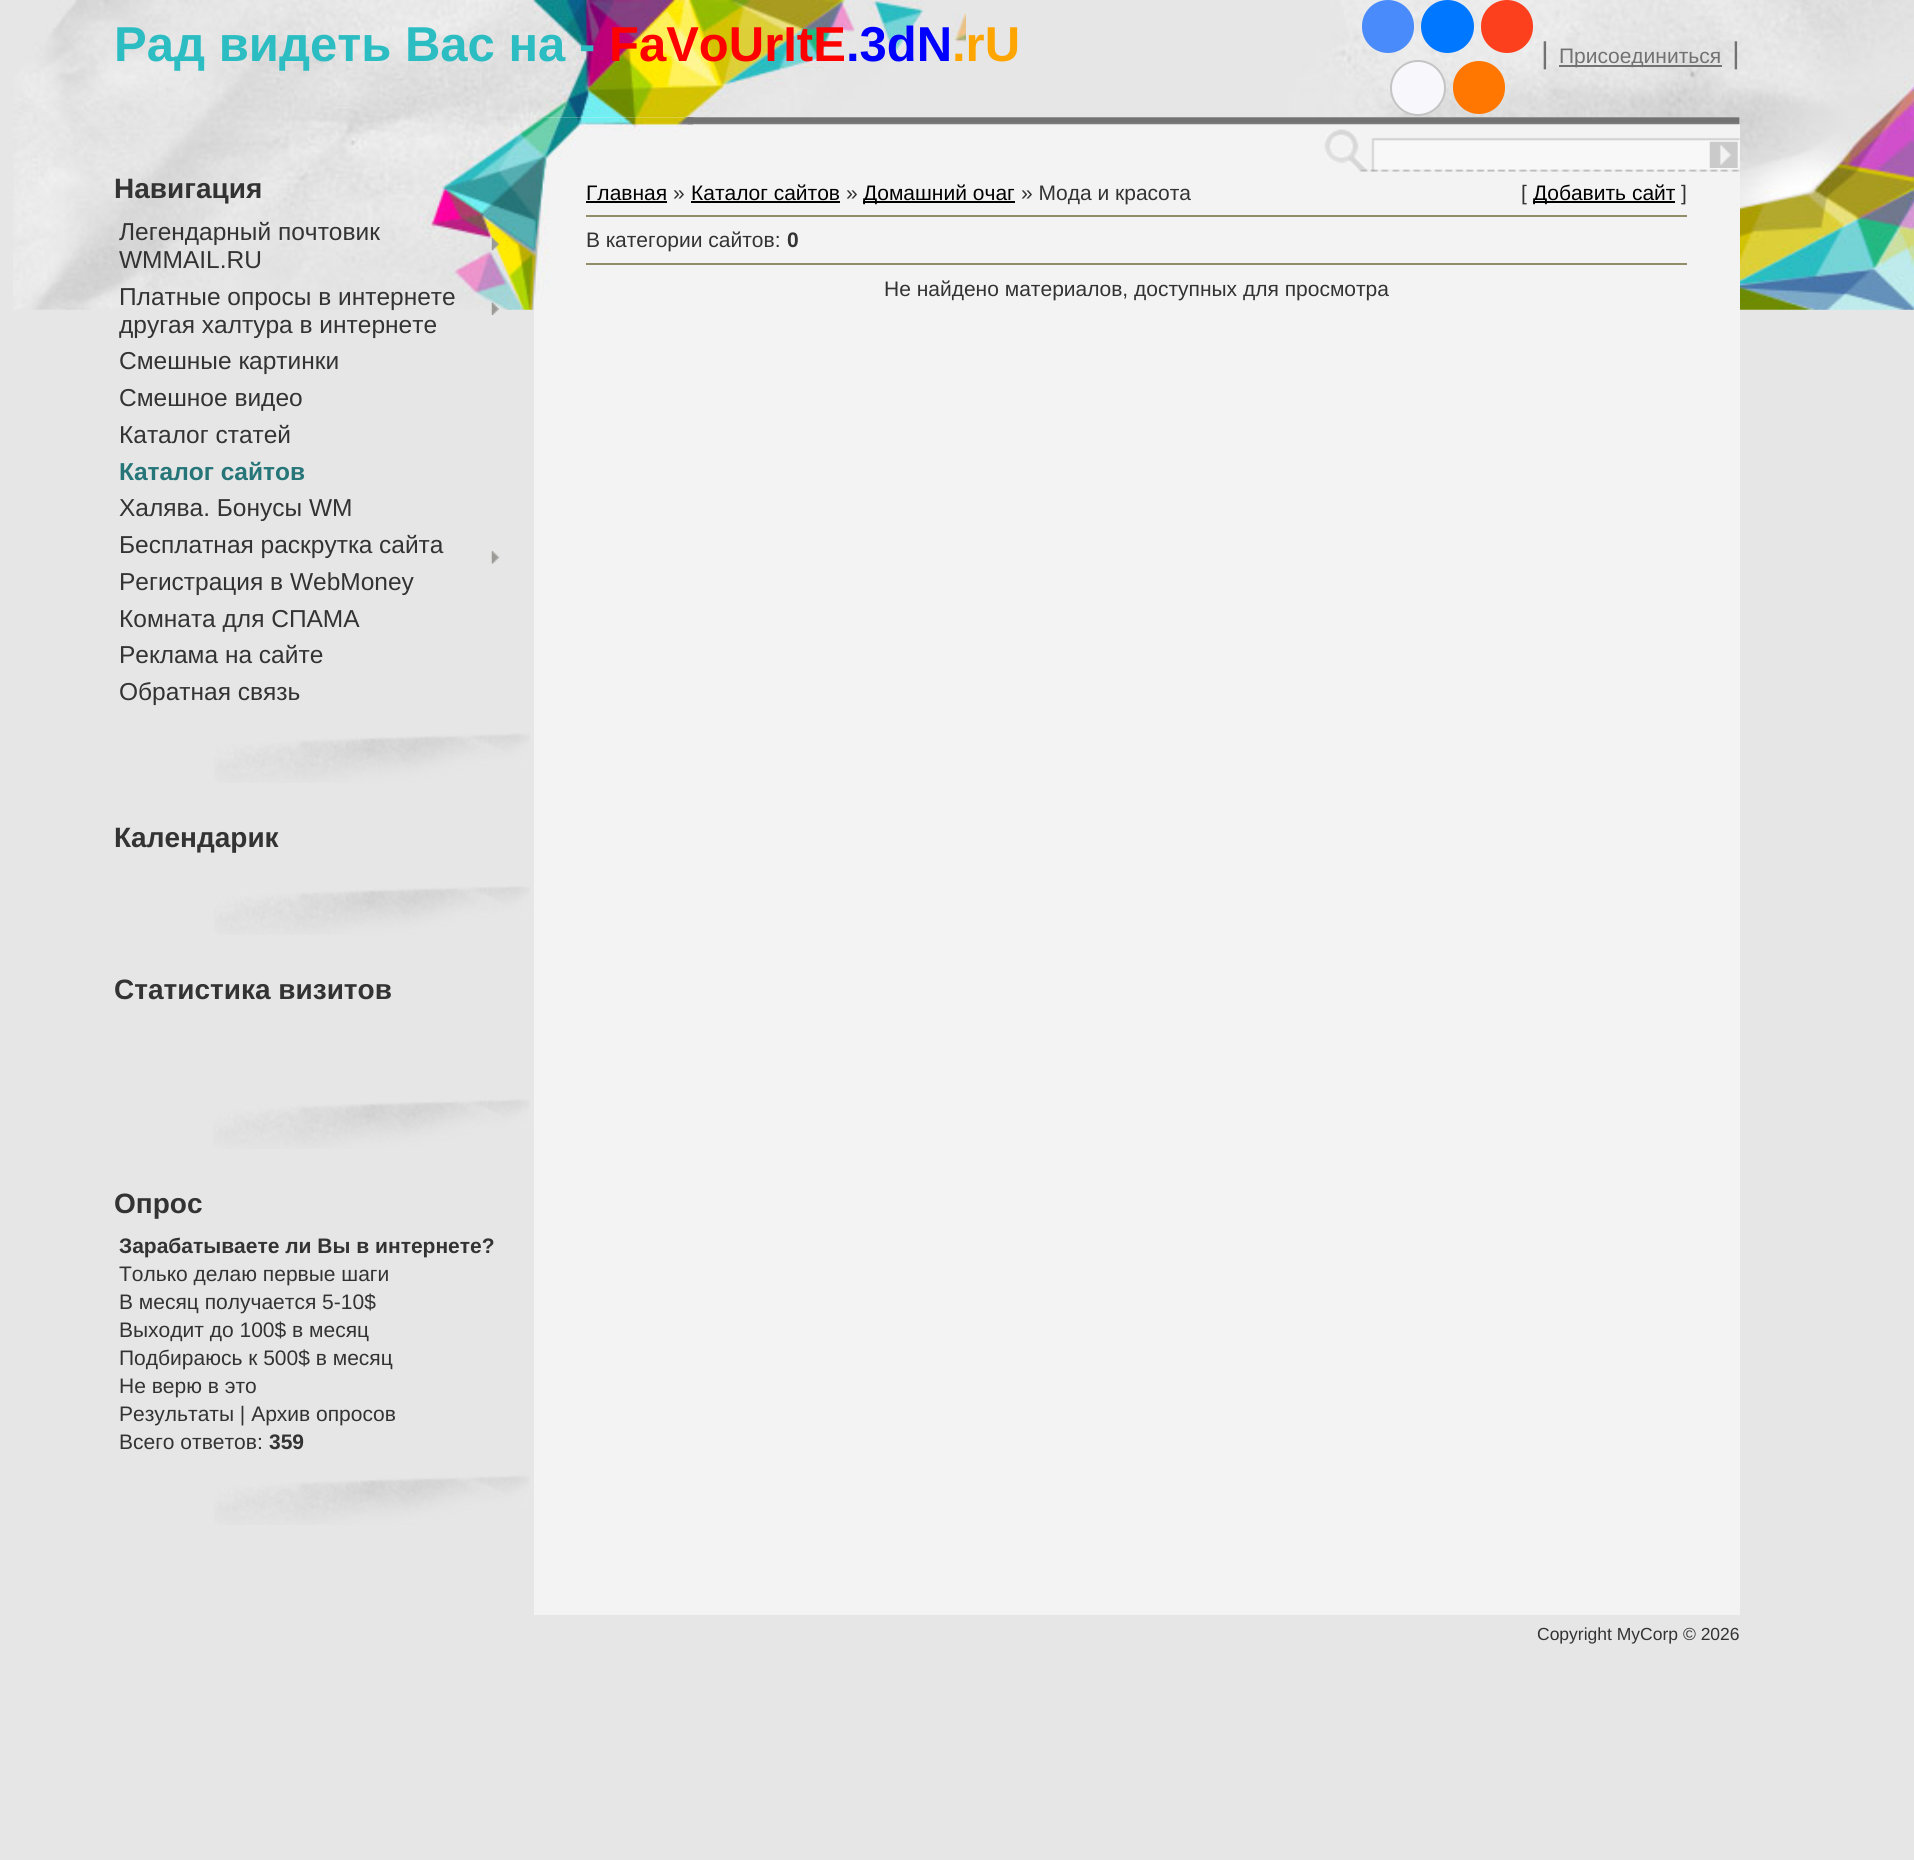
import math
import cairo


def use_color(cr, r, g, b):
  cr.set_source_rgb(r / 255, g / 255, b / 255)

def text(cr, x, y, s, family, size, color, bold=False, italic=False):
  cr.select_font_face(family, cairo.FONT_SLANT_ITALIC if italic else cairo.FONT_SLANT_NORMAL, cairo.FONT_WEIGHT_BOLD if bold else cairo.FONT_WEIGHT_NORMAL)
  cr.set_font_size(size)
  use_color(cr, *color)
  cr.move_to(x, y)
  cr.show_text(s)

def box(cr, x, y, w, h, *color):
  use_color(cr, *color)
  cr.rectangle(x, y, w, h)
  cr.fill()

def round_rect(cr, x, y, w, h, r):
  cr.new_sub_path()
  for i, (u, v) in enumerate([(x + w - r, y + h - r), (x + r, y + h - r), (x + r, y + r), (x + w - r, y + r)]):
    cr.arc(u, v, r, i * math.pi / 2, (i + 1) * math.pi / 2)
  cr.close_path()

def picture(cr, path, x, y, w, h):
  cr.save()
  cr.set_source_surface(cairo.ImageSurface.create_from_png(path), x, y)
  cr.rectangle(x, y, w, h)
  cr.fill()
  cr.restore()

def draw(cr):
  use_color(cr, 230, 230, 230)
  cr.paint()
  picture(cr, "img_01.png", 13, 0, 953, 310)
  picture(cr, "img_02.png", 966, 0, 948, 310)
  use_color(cr, 73, 139, 250)
  round_rect(cr, 1362, 0, 52, 53, 26)
  cr.fill()
  use_color(cr, 0, 119, 255)
  cr.arc(1447.5, 26.5, 26.5, 0, 2 * math.pi)
  cr.fill()
  use_color(cr, 252, 63, 29)
  round_rect(cr, 1481, 0, 52, 53, 26)
  cr.fill()
  use_color(cr, 248, 248, 252)
  cr.arc(1418, 88, 27, 0, 2 * math.pi)
  cr.fill_preserve()
  use_color(cr, 196, 196, 196)
  cr.stroke()
  use_color(cr, 255, 119, 0)
  round_rect(cr, 1453, 61, 52, 53, 26)
  cr.fill()
  box(cr, 1559, 65, 163, 2, 114, 114, 114)
  picture(cr, "img_03.png", 214, 733, 316, 50)
  picture(cr, "img_04.png", 491, 238, 8, 13)
  picture(cr, "img_05.png", 491, 302, 8, 13)
  picture(cr, "img_06.png", 491, 551, 8, 13)
  picture(cr, "img_07.png", 214, 886, 316, 49)
  picture(cr, "img_08.png", 213, 1099, 317, 50)
  picture(cr, "img_03.png", 214, 1475, 316, 50)
  box(cr, 534, 117, 1206, 1498, 243, 243, 243)
  picture(cr, "img_09.png", 533, 117, 160, 193)
  picture(cr, "img_10.png", 687, 117, 1053, 8)
  picture(cr, "img_11.png", 1324, 129, 416, 43)
  picture(cr, "img_12.png", 1709, 141, 29, 27)
  box(cr, 586, 201, 81, 2, 0, 0, 0)
  box(cr, 691, 201, 149, 2, 0, 0, 0)
  box(cr, 863, 201, 152, 2, 0, 0, 0)
  box(cr, 1533, 201, 142, 2, 0, 0, 0)
  box(cr, 586, 215, 1101, 2, 145, 143, 105)
  box(cr, 586, 263, 1101, 2, 145, 143, 105)
  text(cr, 114, 61, "Рад видеть Вас на -", "Liberation Sans", 49, (43, 189, 194), bold=True)
  text(cr, 609, 61, "FaVoUrItE", "Liberation Sans", 49, (255, 0, 0), bold=True)
  text(cr, 846, 61, ".3dN", "Liberation Sans", 49, (0, 0, 255), bold=True)
  text(cr, 952, 61, ".rU", "Liberation Sans", 49, (255, 165, 0), bold=True)
  text(cr, 1541, 63, "|", "Liberation Sans", 30, (114, 114, 114))
  text(cr, 1559, 63, "Присоединиться", "Liberation Sans", 21, (114, 114, 114))
  text(cr, 1732, 63, "|", "Liberation Sans", 30, (114, 114, 114))
  text(cr, 114, 198, "Навигация", "Liberation Sans", 28, (51, 51, 51), bold=True)
  text(cr, 119, 240, "Легендарный почтовик", "Liberation Sans", 24.5, (51, 51, 51))
  text(cr, 119, 268, "WMMAIL.RU", "Liberation Sans", 24.5, (51, 51, 51))
  text(cr, 119, 305, "Платные опросы в интернете", "Liberation Sans", 24.5, (51, 51, 51))
  text(cr, 119, 333, "другая халтура в интернете", "Liberation Sans", 24.5, (51, 51, 51))
  text(cr, 119, 369, "Смешные картинки", "Liberation Sans", 24.5, (51, 51, 51))
  text(cr, 119, 406, "Смешное видео", "Liberation Sans", 24.5, (51, 51, 51))
  text(cr, 119, 443, "Каталог статей", "Liberation Sans", 24.5, (51, 51, 51))
  text(cr, 119, 480, "Каталог сайтов", "Liberation Sans", 24.5, (38, 117, 120), bold=True)
  text(cr, 119, 516, "Халява. Бонусы WM", "Liberation Sans", 24.5, (51, 51, 51))
  text(cr, 119, 553, "Бесплатная раскрутка сайта", "Liberation Sans", 24.5, (51, 51, 51))
  text(cr, 119, 590, "Регистрация в WebMoney", "Liberation Sans", 24.5, (51, 51, 51))
  text(cr, 119, 627, "Комната для СПАМА", "Liberation Sans", 24.5, (51, 51, 51))
  text(cr, 119, 663, "Реклама на сайте", "Liberation Sans", 24.5, (51, 51, 51))
  text(cr, 119, 700, "Обратная связь", "Liberation Sans", 24.5, (51, 51, 51))
  text(cr, 114, 847, "Календарик", "Liberation Sans", 28, (51, 51, 51), bold=True)
  text(cr, 114, 999, "Статистика визитов", "Liberation Sans", 28, (51, 51, 51), bold=True)
  text(cr, 114, 1213, "Опрос", "Liberation Sans", 28, (51, 51, 51), bold=True)
  text(cr, 119, 1253, "Зарабатываете ли Вы в интернете?", "Liberation Sans", 21, (51, 51, 51), bold=True)
  text(cr, 119, 1281, "Только делаю первые шаги", "Liberation Sans", 21, (51, 51, 51))
  text(cr, 119, 1309, "В месяц получается 5-10$", "Liberation Sans", 21, (51, 51, 51))
  text(cr, 119, 1337, "Выходит до 100$ в месяц", "Liberation Sans", 21, (51, 51, 51))
  text(cr, 119, 1365, "Подбираюсь к 500$ в месяц", "Liberation Sans", 21, (51, 51, 51))
  text(cr, 119, 1393, "Не верю в это", "Liberation Sans", 21, (51, 51, 51))
  text(cr, 119, 1421, "Результаты | Архив опросов", "Liberation Sans", 21, (51, 51, 51))
  text(cr, 119, 1449, "Всего ответов:", "Liberation Sans", 21, (51, 51, 51))
  text(cr, 269, 1449, "359", "Liberation Sans", 21, (51, 51, 51), bold=True)
  text(cr, 586, 200, "Главная", "Liberation Sans", 21, (0, 0, 0))
  text(cr, 673, 200, "»", "Liberation Sans", 21, (51, 51, 51))
  text(cr, 691, 200, "Каталог сайтов", "Liberation Sans", 21, (0, 0, 0))
  text(cr, 846, 200, "»", "Liberation Sans", 21, (51, 51, 51))
  text(cr, 863, 200, "Домашний очаг", "Liberation Sans", 21, (0, 0, 0))
  text(cr, 1021, 200, "» Мода и красота", "Liberation Sans", 21, (51, 51, 51))
  text(cr, 1521, 200, "[", "Liberation Sans", 21, (51, 51, 51))
  text(cr, 1533, 200, "Добавить сайт", "Liberation Sans", 21, (0, 0, 0))
  text(cr, 1681, 200, "]", "Liberation Sans", 21, (51, 51, 51))
  text(cr, 586, 247, "В категории сайтов:", "Liberation Sans", 21, (51, 51, 51))
  text(cr, 787, 247, "0", "Liberation Sans", 21, (51, 51, 51), bold=True)
  text(cr, 884, 296, "Не найдено материалов, доступных для просмотра", "Liberation Sans", 21, (51, 51, 51))
  text(cr, 1537, 1640, "Copyright MyCorp © 2026", "Liberation Sans", 17.5, (51, 51, 51))


surface = cairo.ImageSurface(cairo.FORMAT_RGB24, 1914, 1860)
cr = cairo.Context(surface)
options = cairo.FontOptions()
options.set_hint_metrics(cairo.HINT_METRICS_OFF)
options.set_hint_style(cairo.HINT_STYLE_NONE)
cr.set_font_options(options)
cr.set_miter_limit(4)
draw(cr)
surface.write_to_png("out.png")
